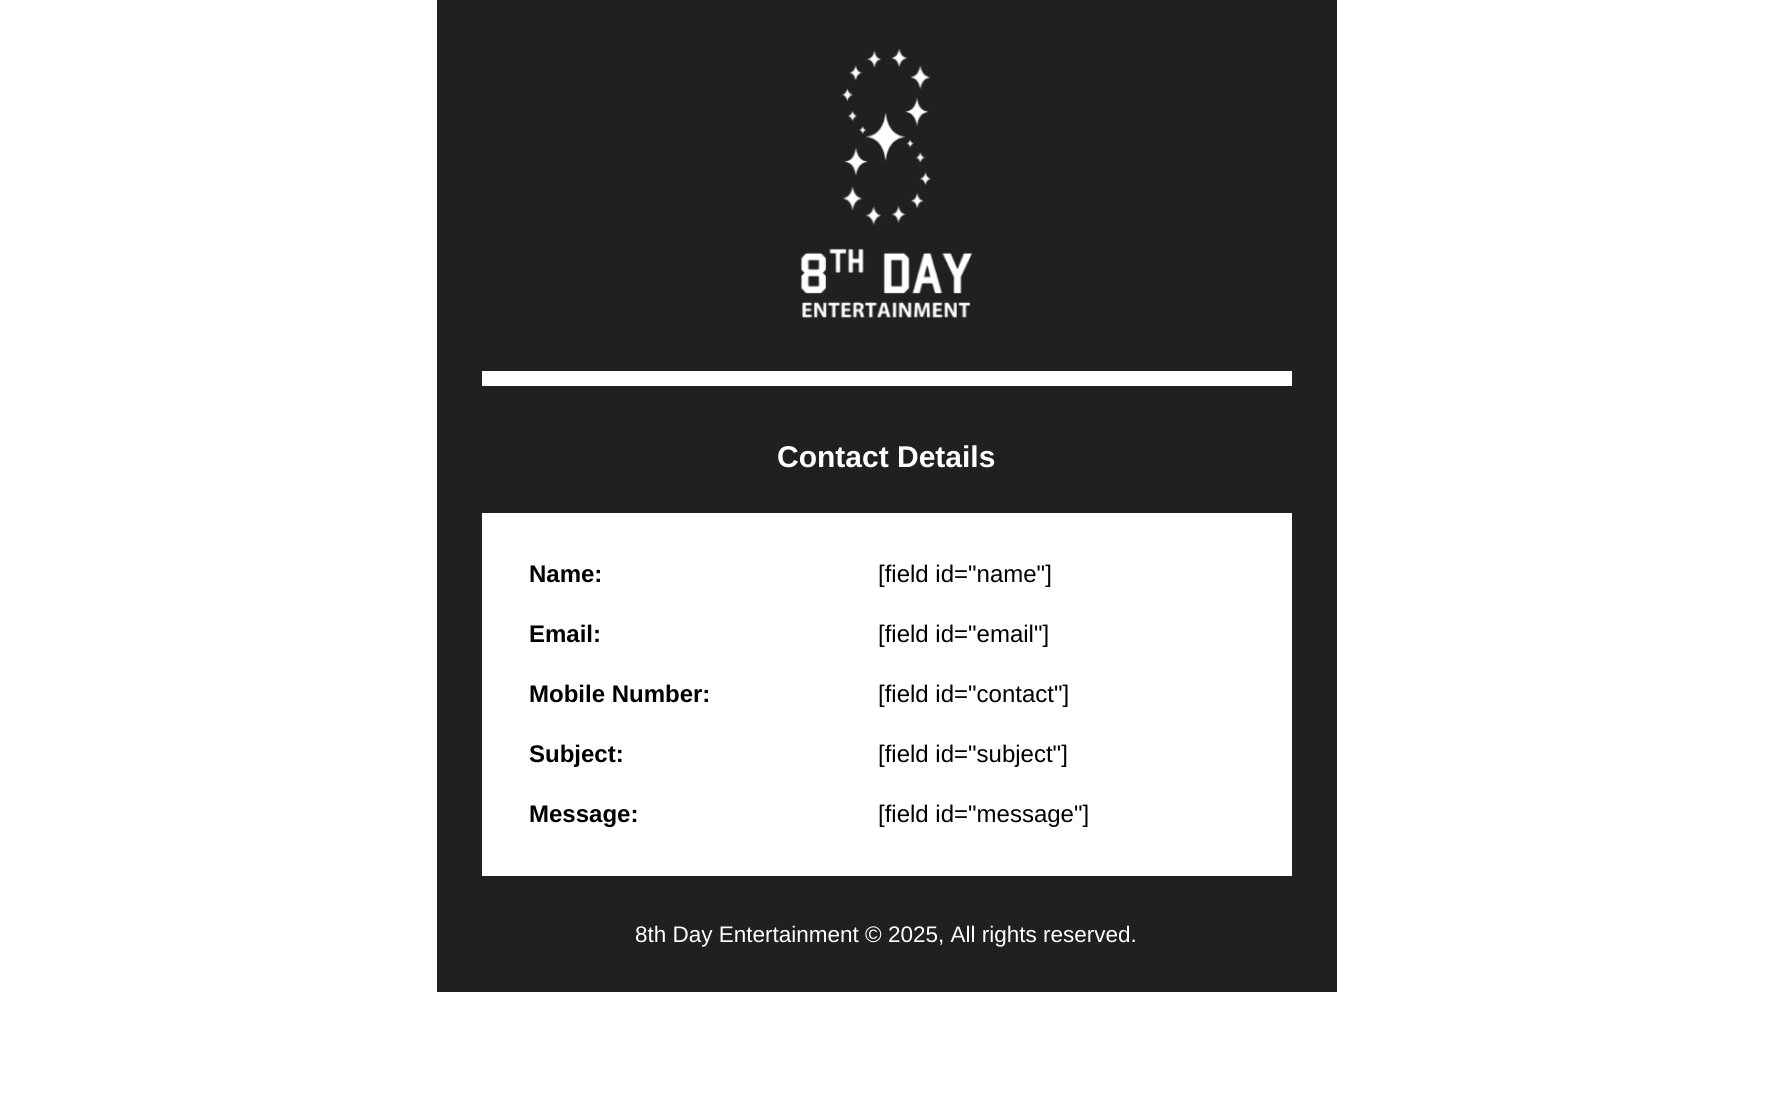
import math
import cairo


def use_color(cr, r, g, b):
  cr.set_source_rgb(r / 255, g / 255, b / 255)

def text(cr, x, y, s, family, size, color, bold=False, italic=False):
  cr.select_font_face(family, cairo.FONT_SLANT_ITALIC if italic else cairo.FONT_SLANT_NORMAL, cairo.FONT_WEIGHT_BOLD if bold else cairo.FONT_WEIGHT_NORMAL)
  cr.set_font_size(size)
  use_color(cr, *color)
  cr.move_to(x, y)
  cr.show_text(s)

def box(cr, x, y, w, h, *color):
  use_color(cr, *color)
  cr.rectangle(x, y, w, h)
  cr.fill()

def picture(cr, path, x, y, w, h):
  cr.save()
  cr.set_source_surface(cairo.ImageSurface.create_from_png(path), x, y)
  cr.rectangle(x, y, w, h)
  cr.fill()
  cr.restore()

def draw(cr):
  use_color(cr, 255, 255, 255)
  cr.paint()
  box(cr, 437, 0, 900, 992, 32, 32, 32)
  picture(cr, "img_01.png", 800, 48, 173, 270)
  box(cr, 482, 371, 810, 15, 255, 255, 255)
  box(cr, 482, 513, 810, 363, 255, 255, 255)
  text(cr, 777, 467, "Contact Details", "Liberation Sans", 30, (255, 255, 255), bold=True)
  text(cr, 529, 582, "Name:", "Liberation Sans", 24, (0, 0, 0), bold=True)
  text(cr, 878, 582, "[field id=\"name\"]", "Liberation Sans", 24, (0, 0, 0))
  text(cr, 529, 642, "Email:", "Liberation Sans", 24, (0, 0, 0), bold=True)
  text(cr, 878, 642, "[field id=\"email\"]", "Liberation Sans", 24, (0, 0, 0))
  text(cr, 529, 702, "Mobile Number:", "Liberation Sans", 24, (0, 0, 0), bold=True)
  text(cr, 878, 702, "[field id=\"contact\"]", "Liberation Sans", 24, (0, 0, 0))
  text(cr, 529, 762, "Subject:", "Liberation Sans", 24, (0, 0, 0), bold=True)
  text(cr, 878, 762, "[field id=\"subject\"]", "Liberation Sans", 24, (0, 0, 0))
  text(cr, 529, 822, "Message:", "Liberation Sans", 24, (0, 0, 0), bold=True)
  text(cr, 878, 822, "[field id=\"message\"]", "Liberation Sans", 24, (0, 0, 0))
  text(cr, 635, 942, "8th Day Entertainment © 2025, All rights reserved.", "Liberation Sans", 22.5, (255, 255, 255))


surface = cairo.ImageSurface(cairo.FORMAT_RGB24, 1771, 1094)
cr = cairo.Context(surface)
options = cairo.FontOptions()
options.set_hint_metrics(cairo.HINT_METRICS_OFF)
options.set_hint_style(cairo.HINT_STYLE_NONE)
cr.set_font_options(options)
cr.set_miter_limit(4)
draw(cr)
surface.write_to_png("out.png")
